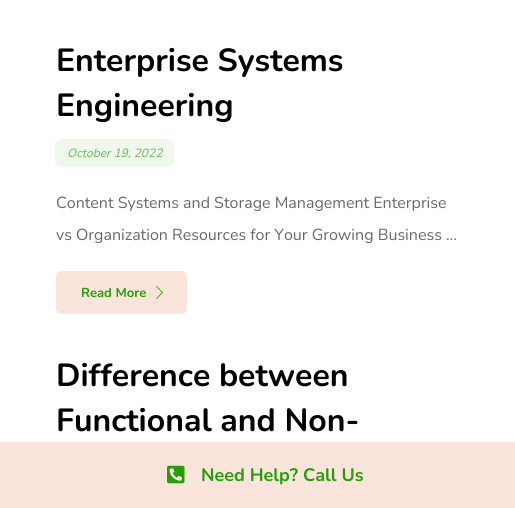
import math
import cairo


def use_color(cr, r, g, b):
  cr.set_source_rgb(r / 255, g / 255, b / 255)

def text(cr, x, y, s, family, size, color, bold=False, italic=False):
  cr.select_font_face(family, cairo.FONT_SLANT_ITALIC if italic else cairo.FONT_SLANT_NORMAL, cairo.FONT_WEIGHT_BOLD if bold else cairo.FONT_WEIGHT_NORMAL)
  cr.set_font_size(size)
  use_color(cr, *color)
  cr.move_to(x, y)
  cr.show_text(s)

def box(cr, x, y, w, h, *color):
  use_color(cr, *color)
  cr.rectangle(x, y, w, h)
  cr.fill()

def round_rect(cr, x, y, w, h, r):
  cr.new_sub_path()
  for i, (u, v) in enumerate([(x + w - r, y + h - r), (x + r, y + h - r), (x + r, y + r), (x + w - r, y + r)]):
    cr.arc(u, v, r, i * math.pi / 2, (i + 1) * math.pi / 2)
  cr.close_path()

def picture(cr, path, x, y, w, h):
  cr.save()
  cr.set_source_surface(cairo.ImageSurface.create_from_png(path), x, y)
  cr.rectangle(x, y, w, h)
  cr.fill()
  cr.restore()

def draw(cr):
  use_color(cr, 255, 255, 255)
  cr.paint()
  use_color(cr, 240, 248, 238)
  round_rect(cr, 55, 139, 119, 28, 6)
  cr.fill()
  use_color(cr, 250, 228, 219)
  round_rect(cr, 56, 271, 131, 43, 6)
  cr.fill()
  picture(cr, "img_01.png", 156, 286, 7, 13)
  box(cr, 0, 442, 515, 66, 250, 228, 219)
  picture(cr, "img_02.png", 167, 465, 18, 19)
  text(cr, 56, 71, "Enterprise Systems", "Nunito", 32, (0, 0, 0), bold=True)
  text(cr, 56, 116, "Engineering", "Nunito", 32, (0, 0, 0), bold=True)
  text(cr, 67, 157, "October 19, 2022", "Nunito", 12, (102, 187, 84), italic=True)
  text(cr, 56, 208, "Content Systems and Storage Management Enterprise", "Nunito", 16, (104, 104, 104))
  text(cr, 56, 240, "vs Organization Resources for Your Growing Business ...", "Nunito", 16, (104, 104, 104))
  text(cr, 81, 297, "Read More", "Nunito", 13, (37, 158, 10), bold=True)
  text(cr, 56, 386, "Difference between", "Nunito", 32, (0, 0, 0), bold=True)
  text(cr, 56, 431, "Functional and Non-", "Nunito", 32, (0, 0, 0), bold=True)
  text(cr, 201, 481, "Need Help? Call Us", "Nunito", 18, (37, 158, 10), bold=True)


surface = cairo.ImageSurface(cairo.FORMAT_RGB24, 515, 508)
cr = cairo.Context(surface)
options = cairo.FontOptions()
options.set_hint_metrics(cairo.HINT_METRICS_OFF)
options.set_hint_style(cairo.HINT_STYLE_NONE)
cr.set_font_options(options)
cr.set_miter_limit(4)
draw(cr)
surface.write_to_png("out.png")
